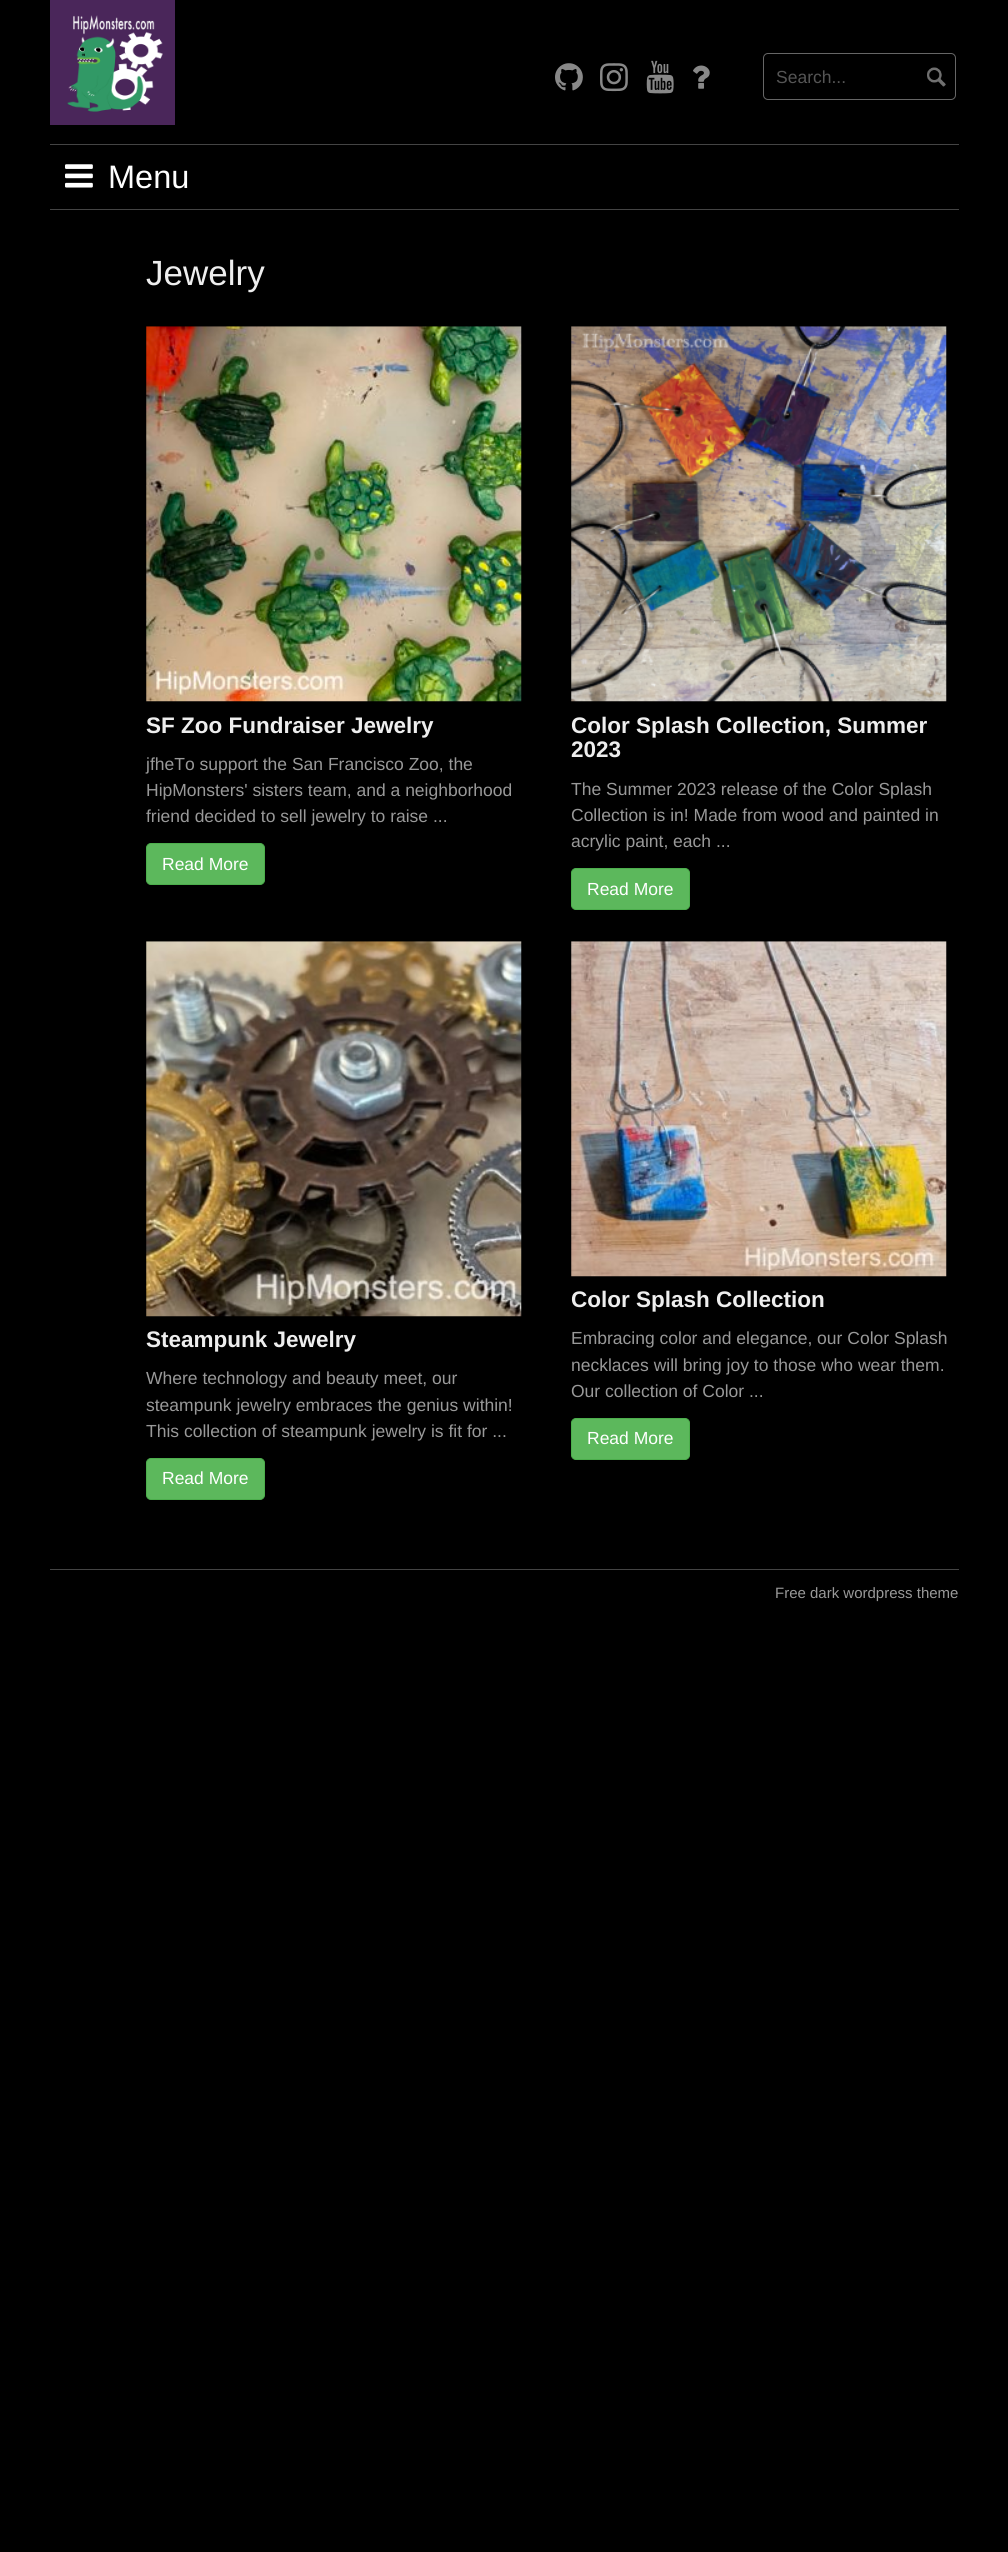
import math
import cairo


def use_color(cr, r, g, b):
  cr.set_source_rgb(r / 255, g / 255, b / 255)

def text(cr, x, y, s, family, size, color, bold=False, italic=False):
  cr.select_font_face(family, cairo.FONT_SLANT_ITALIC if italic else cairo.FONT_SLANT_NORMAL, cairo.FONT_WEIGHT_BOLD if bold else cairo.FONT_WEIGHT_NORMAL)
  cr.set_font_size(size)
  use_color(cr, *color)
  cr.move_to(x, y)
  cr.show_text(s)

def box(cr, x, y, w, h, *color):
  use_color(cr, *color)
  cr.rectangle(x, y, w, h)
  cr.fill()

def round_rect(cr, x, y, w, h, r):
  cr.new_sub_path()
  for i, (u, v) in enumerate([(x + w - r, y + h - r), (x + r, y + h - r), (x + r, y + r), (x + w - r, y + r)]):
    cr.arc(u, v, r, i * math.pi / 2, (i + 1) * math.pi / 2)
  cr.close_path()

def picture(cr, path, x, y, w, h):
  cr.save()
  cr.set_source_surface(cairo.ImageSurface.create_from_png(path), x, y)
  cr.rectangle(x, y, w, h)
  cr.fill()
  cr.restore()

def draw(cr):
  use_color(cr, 0, 0, 0)
  cr.paint()
  picture(cr, "img_01.png", 50, 0, 125, 125)
  picture(cr, "img_02.png", 555, 63, 28, 28)
  picture(cr, "img_03.png", 600, 63, 28, 29)
  picture(cr, "img_04.png", 646, 60, 28, 34)
  picture(cr, "img_05.png", 693, 65, 17, 24)
  round_rect(cr, 763.5, 53.5, 192, 46, 4.5)
  use_color(cr, 102, 102, 102)
  cr.set_line_width(1)
  cr.stroke()
  picture(cr, "img_06.png", 927, 67, 19, 20)
  box(cr, 50, 144, 909, 1, 68, 68, 68)
  box(cr, 50, 209, 909, 1, 68, 68, 68)
  picture(cr, "img_07.png", 65, 164, 28, 24)
  picture(cr, "img_08.png", 146, 326, 376, 376)
  use_color(cr, 92, 184, 92)
  round_rect(cr, 146.5, 843.5, 118, 41, 4.5)
  cr.fill_preserve()
  use_color(cr, 76, 174, 76)
  cr.stroke()
  picture(cr, "img_09.png", 571, 326, 376, 376)
  use_color(cr, 92, 184, 92)
  round_rect(cr, 571.5, 868.5, 118, 41, 4.5)
  cr.fill_preserve()
  use_color(cr, 76, 174, 76)
  cr.stroke()
  picture(cr, "img_10.png", 146, 941, 376, 376)
  use_color(cr, 92, 184, 92)
  round_rect(cr, 146.5, 1458.5, 118, 41, 4.5)
  cr.fill_preserve()
  use_color(cr, 76, 174, 76)
  cr.stroke()
  picture(cr, "img_11.png", 571, 941, 376, 336)
  use_color(cr, 92, 184, 92)
  round_rect(cr, 571.5, 1418.5, 118, 41, 4.5)
  cr.fill_preserve()
  use_color(cr, 76, 174, 76)
  cr.stroke()
  box(cr, 50, 1569, 909, 1, 68, 68, 68)
  text(cr, 776, 83, "Search...", "Liberation Sans", 17.5, (85, 85, 85))
  text(cr, 108, 188, "Menu", "Liberation Sans", 32.5, (255, 255, 255))
  text(cr, 146, 285, "Jewelry", "Liberation Sans", 35, (238, 238, 238))
  text(cr, 146, 733, "SF Zoo Fundraiser Jewelry", "Liberation Sans", 22.5, (238, 238, 238), bold=True)
  text(cr, 146, 770, "jfheTo support the San Francisco Zoo, the", "Liberation Sans", 17.5, (153, 153, 153))
  text(cr, 146, 796, "HipMonsters' sisters team, and a neighborhood", "Liberation Sans", 17.5, (153, 153, 153))
  text(cr, 146, 822, "friend decided to sell jewelry to raise ...", "Liberation Sans", 17.5, (153, 153, 153))
  text(cr, 162, 870, "Read More", "Liberation Sans", 17.5, (255, 255, 255))
  text(cr, 571, 733, "Color Splash Collection, Summer", "Liberation Sans", 22.5, (238, 238, 238), bold=True)
  text(cr, 571, 757, "2023", "Liberation Sans", 22.5, (238, 238, 238), bold=True)
  text(cr, 571, 795, "The Summer 2023 release of the Color Splash", "Liberation Sans", 17.5, (153, 153, 153))
  text(cr, 571, 821, "Collection is in! Made from wood and painted in", "Liberation Sans", 17.5, (153, 153, 153))
  text(cr, 571, 847, "acrylic paint, each ...", "Liberation Sans", 17.5, (153, 153, 153))
  text(cr, 587, 895, "Read More", "Liberation Sans", 17.5, (255, 255, 255))
  text(cr, 146, 1347, "Steampunk Jewelry", "Liberation Sans", 22.5, (238, 238, 238), bold=True)
  text(cr, 146, 1384, "Where technology and beauty meet, our", "Liberation Sans", 17.5, (153, 153, 153))
  text(cr, 146, 1411, "steampunk jewelry embraces the genius within!", "Liberation Sans", 17.5, (153, 153, 153))
  text(cr, 146, 1437, "This collection of steampunk jewelry is fit for ...", "Liberation Sans", 17.5, (153, 153, 153))
  text(cr, 162, 1484, "Read More", "Liberation Sans", 17.5, (255, 255, 255))
  text(cr, 571, 1307, "Color Splash Collection", "Liberation Sans", 22.5, (238, 238, 238), bold=True)
  text(cr, 571, 1344, "Embracing color and elegance, our Color Splash", "Liberation Sans", 17.5, (153, 153, 153))
  text(cr, 571, 1371, "necklaces will bring joy to those who wear them.", "Liberation Sans", 17.5, (153, 153, 153))
  text(cr, 571, 1397, "Our collection of Color ...", "Liberation Sans", 17.5, (153, 153, 153))
  text(cr, 587, 1444, "Read More", "Liberation Sans", 17.5, (255, 255, 255))
  text(cr, 775, 1598, "Free dark wordpress theme", "Liberation Sans", 15, (153, 153, 153))


surface = cairo.ImageSurface(cairo.FORMAT_RGB24, 1008, 2552)
cr = cairo.Context(surface)
options = cairo.FontOptions()
options.set_hint_metrics(cairo.HINT_METRICS_OFF)
options.set_hint_style(cairo.HINT_STYLE_NONE)
cr.set_font_options(options)
cr.set_miter_limit(4)
draw(cr)
surface.write_to_png("out.png")
